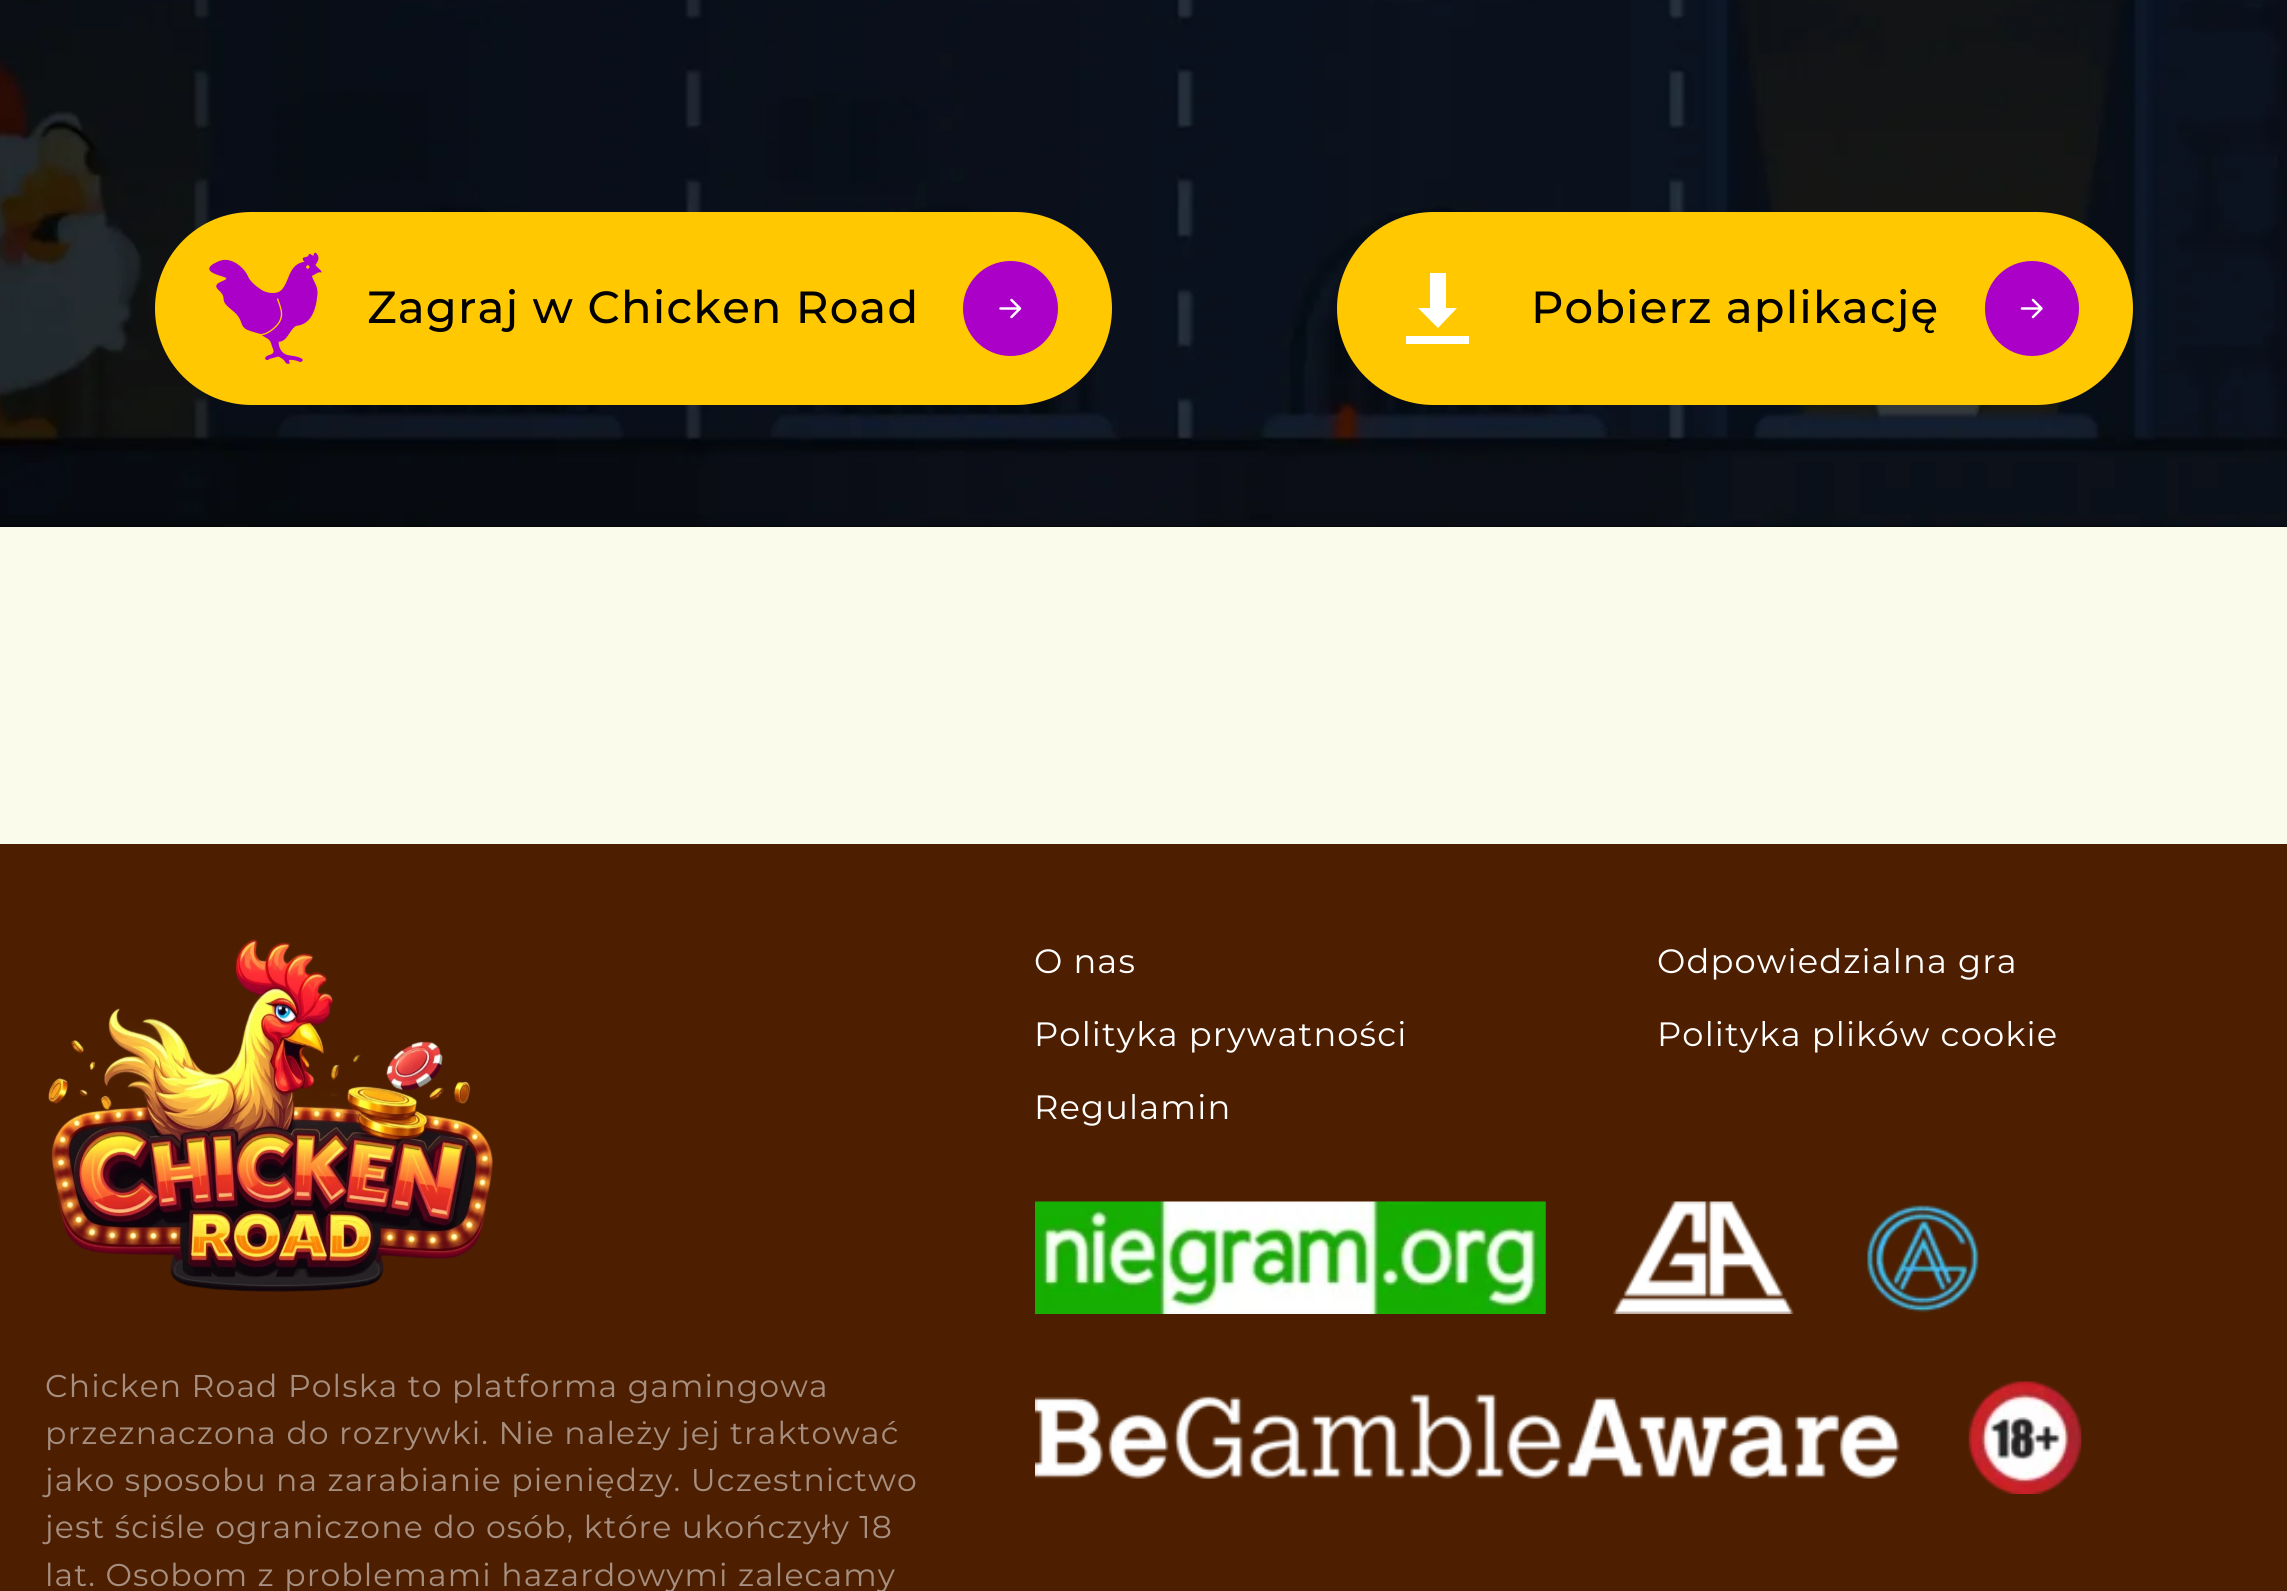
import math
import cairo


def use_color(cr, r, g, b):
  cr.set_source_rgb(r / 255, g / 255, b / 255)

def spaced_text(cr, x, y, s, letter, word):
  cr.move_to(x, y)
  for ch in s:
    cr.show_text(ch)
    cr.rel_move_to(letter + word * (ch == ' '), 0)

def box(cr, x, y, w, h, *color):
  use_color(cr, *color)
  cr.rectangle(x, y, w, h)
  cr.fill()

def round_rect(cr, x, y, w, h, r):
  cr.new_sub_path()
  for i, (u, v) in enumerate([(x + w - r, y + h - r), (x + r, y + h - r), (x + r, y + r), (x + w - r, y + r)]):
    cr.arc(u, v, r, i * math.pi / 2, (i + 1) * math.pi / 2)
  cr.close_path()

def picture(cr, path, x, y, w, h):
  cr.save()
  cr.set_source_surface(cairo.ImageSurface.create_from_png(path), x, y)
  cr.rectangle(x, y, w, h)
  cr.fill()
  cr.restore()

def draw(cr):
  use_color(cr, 250, 251, 235)
  cr.paint()
  box(cr, 0, 526, 2287, 1, 0, 0, 0)
  picture(cr, "img_01.png", 0, 0, 2287, 527)
  use_color(cr, 255, 200, 0)
  round_rect(cr, 155, 212, 957, 193, 96.5)
  cr.fill()
  picture(cr, "img_02.png", 209, 252, 113, 112)
  use_color(cr, 170, 0, 200)
  cr.arc(1010.5, 308.5, 47.5, 0, 2 * math.pi)
  cr.fill()
  cr.new_path()
  cr.move_to(1020, 308.5)
  cr.line_to(1000.5, 308.5)
  cr.move_to(1020, 308.5)
  cr.line_to(1011.5, 317)
  cr.move_to(1020, 308.5)
  cr.line_to(1011.5, 300)
  use_color(cr, 255, 255, 255)
  cr.set_line_width(2.5)
  cr.set_line_cap(cairo.LINE_CAP_ROUND)
  cr.set_line_join(cairo.LINE_JOIN_ROUND)
  cr.stroke()
  use_color(cr, 255, 200, 0)
  round_rect(cr, 1337, 212, 796, 193, 96.5)
  cr.fill()
  use_color(cr, 255, 255, 255)
  cr.new_path()
  cr.move_to(1438, 328)
  cr.line_to(1418, 308)
  cr.line_to(1430, 308)
  cr.line_to(1430, 273)
  cr.line_to(1446, 273)
  cr.line_to(1446, 308)
  cr.line_to(1457, 308)
  cr.close_path()
  cr.move_to(1406, 336)
  cr.line_to(1469, 336)
  cr.line_to(1469, 344)
  cr.line_to(1406, 344)
  cr.close_path()
  cr.fill()
  use_color(cr, 170, 0, 200)
  round_rect(cr, 1985, 261, 94, 95, 47)
  cr.fill()
  cr.new_path()
  cr.move_to(2041.5, 308.5)
  cr.line_to(2022, 308.5)
  cr.move_to(2041.5, 308.5)
  cr.line_to(2033, 317)
  cr.move_to(2041.5, 308.5)
  cr.line_to(2033, 300)
  use_color(cr, 255, 255, 255)
  cr.stroke()
  box(cr, 0, 844, 2287, 747, 77, 31, 0)
  picture(cr, "img_03.png", 1035, 1201, 511, 113)
  picture(cr, "img_04.png", 1613, 1201, 181, 113)
  picture(cr, "img_05.png", 1865, 1205, 114, 108)
  picture(cr, "img_06.png", 1035, 1394, 865, 86)
  picture(cr, "img_07.png", 1968, 1381, 114, 113)
  picture(cr, "img_08.png", 48, 939, 445, 353)
  cr.select_font_face("Montserrat Thin")
  cr.set_font_size(45)
  use_color(cr, 0, 0, 0)
  spaced_text(cr, 367, 323, "Zagraj w Chicken Road", 1.12, 0)
  spaced_text(cr, 1531, 323, "Pobierz aplikację", 1.12, 0)
  cr.select_font_face("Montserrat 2 Thin")
  cr.set_font_size(33.75)
  use_color(cr, 255, 255, 255)
  spaced_text(cr, 1034, 973, "O nas", 1.12, 0)
  spaced_text(cr, 1657, 973, "Odpowiedzialna gra", 1.12, 0)
  spaced_text(cr, 1034, 1046, "Polityka prywatności", 1.12, 0)
  spaced_text(cr, 1657, 1046, "Polityka plików cookie", 1.12, 0)
  spaced_text(cr, 1034, 1119, "Regulamin", 1.12, 0)
  cr.set_font_size(31.5)
  use_color(cr, 166, 143, 128)
  spaced_text(cr, 45, 1397, "Chicken Road Polska to platforma gamingowa", 1.12, 0)
  spaced_text(cr, 45, 1444, "przeznaczona do rozrywki. Nie należy jej traktować", 1.12, 0)
  spaced_text(cr, 45, 1491, "jako sposobu na zarabianie pieniędzy. Uczestnictwo", 1.12, 0)
  spaced_text(cr, 45, 1538, "jest ściśle ograniczone do osób, które ukończyły 18", 1.12, 0)
  spaced_text(cr, 45, 1586, "lat. Osobom z problemami hazardowymi zalecamy", 1.12, 0)


surface = cairo.ImageSurface(cairo.FORMAT_RGB24, 2287, 1591)
cr = cairo.Context(surface)
options = cairo.FontOptions()
options.set_hint_metrics(cairo.HINT_METRICS_OFF)
options.set_hint_style(cairo.HINT_STYLE_NONE)
cr.set_font_options(options)
cr.set_miter_limit(4)
draw(cr)
surface.write_to_png("out.png")
